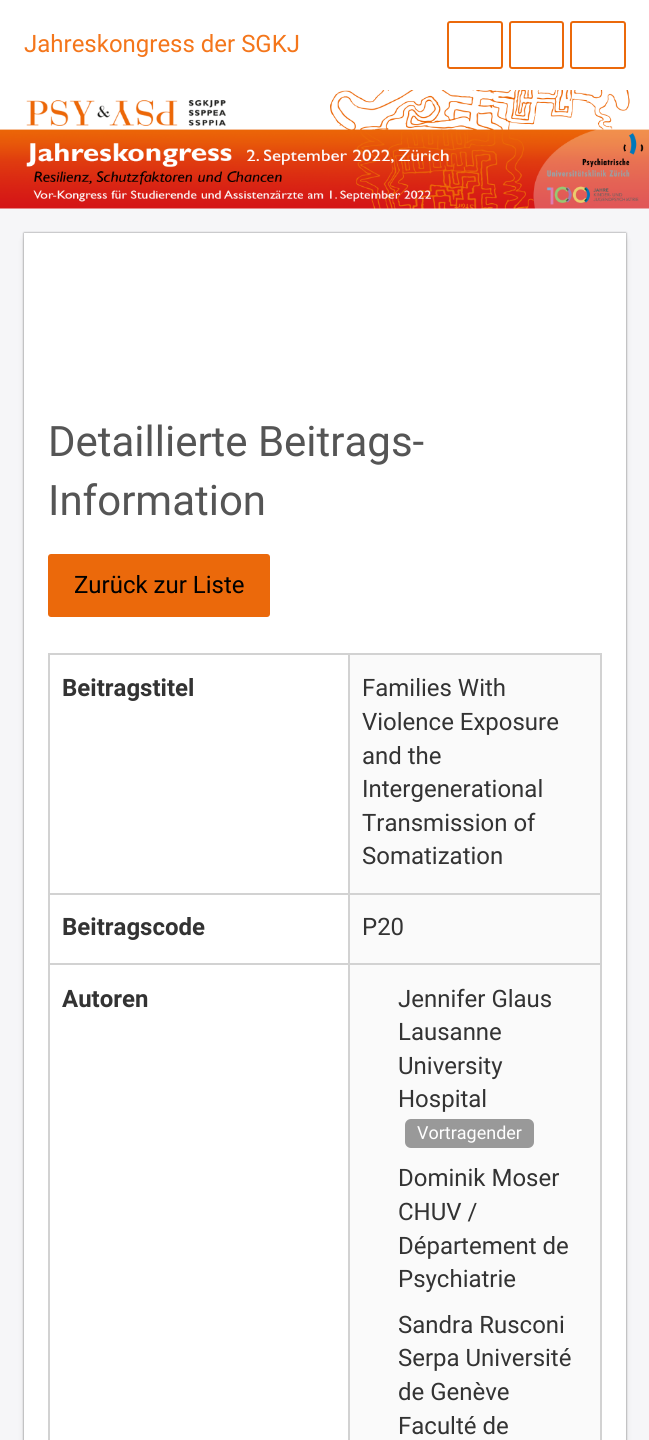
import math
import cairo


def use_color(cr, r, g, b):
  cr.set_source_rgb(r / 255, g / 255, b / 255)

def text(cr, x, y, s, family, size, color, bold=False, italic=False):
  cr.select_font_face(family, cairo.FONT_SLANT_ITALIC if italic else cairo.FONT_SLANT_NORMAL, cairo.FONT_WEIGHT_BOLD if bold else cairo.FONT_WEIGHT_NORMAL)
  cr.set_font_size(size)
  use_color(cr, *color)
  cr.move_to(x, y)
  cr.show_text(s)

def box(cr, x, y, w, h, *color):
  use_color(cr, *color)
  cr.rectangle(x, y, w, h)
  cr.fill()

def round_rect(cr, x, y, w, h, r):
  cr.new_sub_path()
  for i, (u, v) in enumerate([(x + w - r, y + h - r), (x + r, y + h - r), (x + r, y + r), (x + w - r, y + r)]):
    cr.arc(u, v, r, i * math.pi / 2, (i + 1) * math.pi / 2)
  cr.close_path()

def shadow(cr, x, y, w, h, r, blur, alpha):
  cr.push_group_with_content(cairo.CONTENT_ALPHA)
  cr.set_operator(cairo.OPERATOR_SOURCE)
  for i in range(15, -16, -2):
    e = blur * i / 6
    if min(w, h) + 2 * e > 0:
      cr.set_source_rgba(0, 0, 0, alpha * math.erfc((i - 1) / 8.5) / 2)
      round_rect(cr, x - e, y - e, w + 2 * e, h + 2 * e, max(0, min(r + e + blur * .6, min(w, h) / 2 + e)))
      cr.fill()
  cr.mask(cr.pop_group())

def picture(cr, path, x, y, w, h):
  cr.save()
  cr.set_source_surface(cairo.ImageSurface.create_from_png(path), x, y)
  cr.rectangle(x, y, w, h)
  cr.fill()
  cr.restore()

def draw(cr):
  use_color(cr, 246, 246, 248)
  cr.paint()
  box(cr, 0, 0, 649, 90, 255, 255, 255)
  round_rect(cr, 448, 22, 54, 46, 2)
  use_color(cr, 235, 105, 11)
  cr.stroke()
  round_rect(cr, 510, 22, 53, 46, 2)
  cr.stroke()
  round_rect(cr, 571, 22, 54, 46, 2)
  cr.stroke()
  picture(cr, "img_01.png", 0, 90, 649, 119)
  use_color(cr, 0, 0, 0)
  shadow(cr, 27, 240, 596, 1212, 0, 4, 0.25)
  shadow(cr, 24, 233, 602, 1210, 0, 1, 0.5)
  box(cr, 24, 233, 602, 1207, 255, 255, 255)
  use_color(cr, 235, 105, 11)
  round_rect(cr, 48, 554, 222, 63, 3)
  cr.fill()
  box(cr, 350, 655, 250, 785, 250, 250, 250)
  box(cr, 48, 653, 554, 2, 210, 210, 210)
  box(cr, 600, 653, 2, 787, 210, 210, 210)
  box(cr, 48, 653, 2, 787, 210, 210, 210)
  box(cr, 348, 893, 254, 2, 210, 210, 210)
  box(cr, 348, 963, 254, 2, 210, 210, 210)
  box(cr, 348, 963, 2, 477, 210, 210, 210)
  box(cr, 48, 963, 302, 2, 210, 210, 210)
  box(cr, 348, 893, 2, 72, 210, 210, 210)
  box(cr, 48, 893, 302, 2, 210, 210, 210)
  box(cr, 348, 653, 2, 241, 210, 210, 210)
  use_color(cr, 153, 153, 153)
  round_rect(cr, 405, 1119, 129, 29, 6)
  cr.fill()
  text(cr, 24, 52, "Jahreskongress der SGKJ", "Roboto", 24, (244, 118, 27))
  text(cr, 48, 456, "Detaillierte Beitrags-", "Roboto", 42, (85, 85, 85))
  text(cr, 48, 515, "Information", "Roboto", 42, (85, 85, 85))
  text(cr, 74, 593, "Zurück zur Liste", "Roboto", 24, (0, 0, 0))
  text(cr, 62, 696, "Beitragstitel", "Roboto", 24, (51, 51, 51), bold=True)
  text(cr, 362, 696, "Families With", "Roboto", 24, (51, 51, 51))
  text(cr, 362, 730, "Violence Exposure", "Roboto", 24, (51, 51, 51))
  text(cr, 362, 764, "and the", "Roboto", 24, (51, 51, 51))
  text(cr, 362, 797, "Intergenerational", "Roboto", 24, (51, 51, 51))
  text(cr, 362, 831, "Transmission of", "Roboto", 24, (51, 51, 51))
  text(cr, 362, 864, "Somatization", "Roboto", 24, (51, 51, 51))
  text(cr, 62, 935, "Beitragscode", "Roboto", 24, (51, 51, 51), bold=True)
  text(cr, 362, 935, "P20", "Roboto", 24, (51, 51, 51))
  text(cr, 62, 1007, "Autoren", "Roboto", 24, (51, 51, 51), bold=True)
  text(cr, 398, 1007, "Jennifer Glaus", "Roboto", 24, (51, 51, 51))
  text(cr, 398, 1040, "Lausanne", "Roboto", 24, (51, 51, 51))
  text(cr, 398, 1074, "University", "Roboto", 24, (51, 51, 51))
  text(cr, 398, 1107, "Hospital", "Roboto", 24, (51, 51, 51))
  text(cr, 417, 1139, "Vortragender", "Roboto", 18, (255, 255, 255))
  text(cr, 398, 1186, "Dominik Moser", "Roboto", 24, (51, 51, 51))
  text(cr, 398, 1220, "CHUV /", "Roboto", 24, (51, 51, 51))
  text(cr, 398, 1254, "Département de", "Roboto", 24, (51, 51, 51))
  text(cr, 398, 1287, "Psychiatrie", "Roboto", 24, (51, 51, 51))
  text(cr, 398, 1333, "Sandra Rusconi", "Roboto", 24, (51, 51, 51))
  text(cr, 398, 1366, "Serpa Université", "Roboto", 24, (51, 51, 51))
  text(cr, 398, 1400, "de Genève", "Roboto", 24, (51, 51, 51))
  text(cr, 398, 1434, "Faculté de", "Roboto", 24, (51, 51, 51))


surface = cairo.ImageSurface(cairo.FORMAT_RGB24, 649, 1440)
cr = cairo.Context(surface)
options = cairo.FontOptions()
options.set_hint_metrics(cairo.HINT_METRICS_OFF)
options.set_hint_style(cairo.HINT_STYLE_NONE)
cr.set_font_options(options)
cr.set_miter_limit(4)
draw(cr)
surface.write_to_png("out.png")
